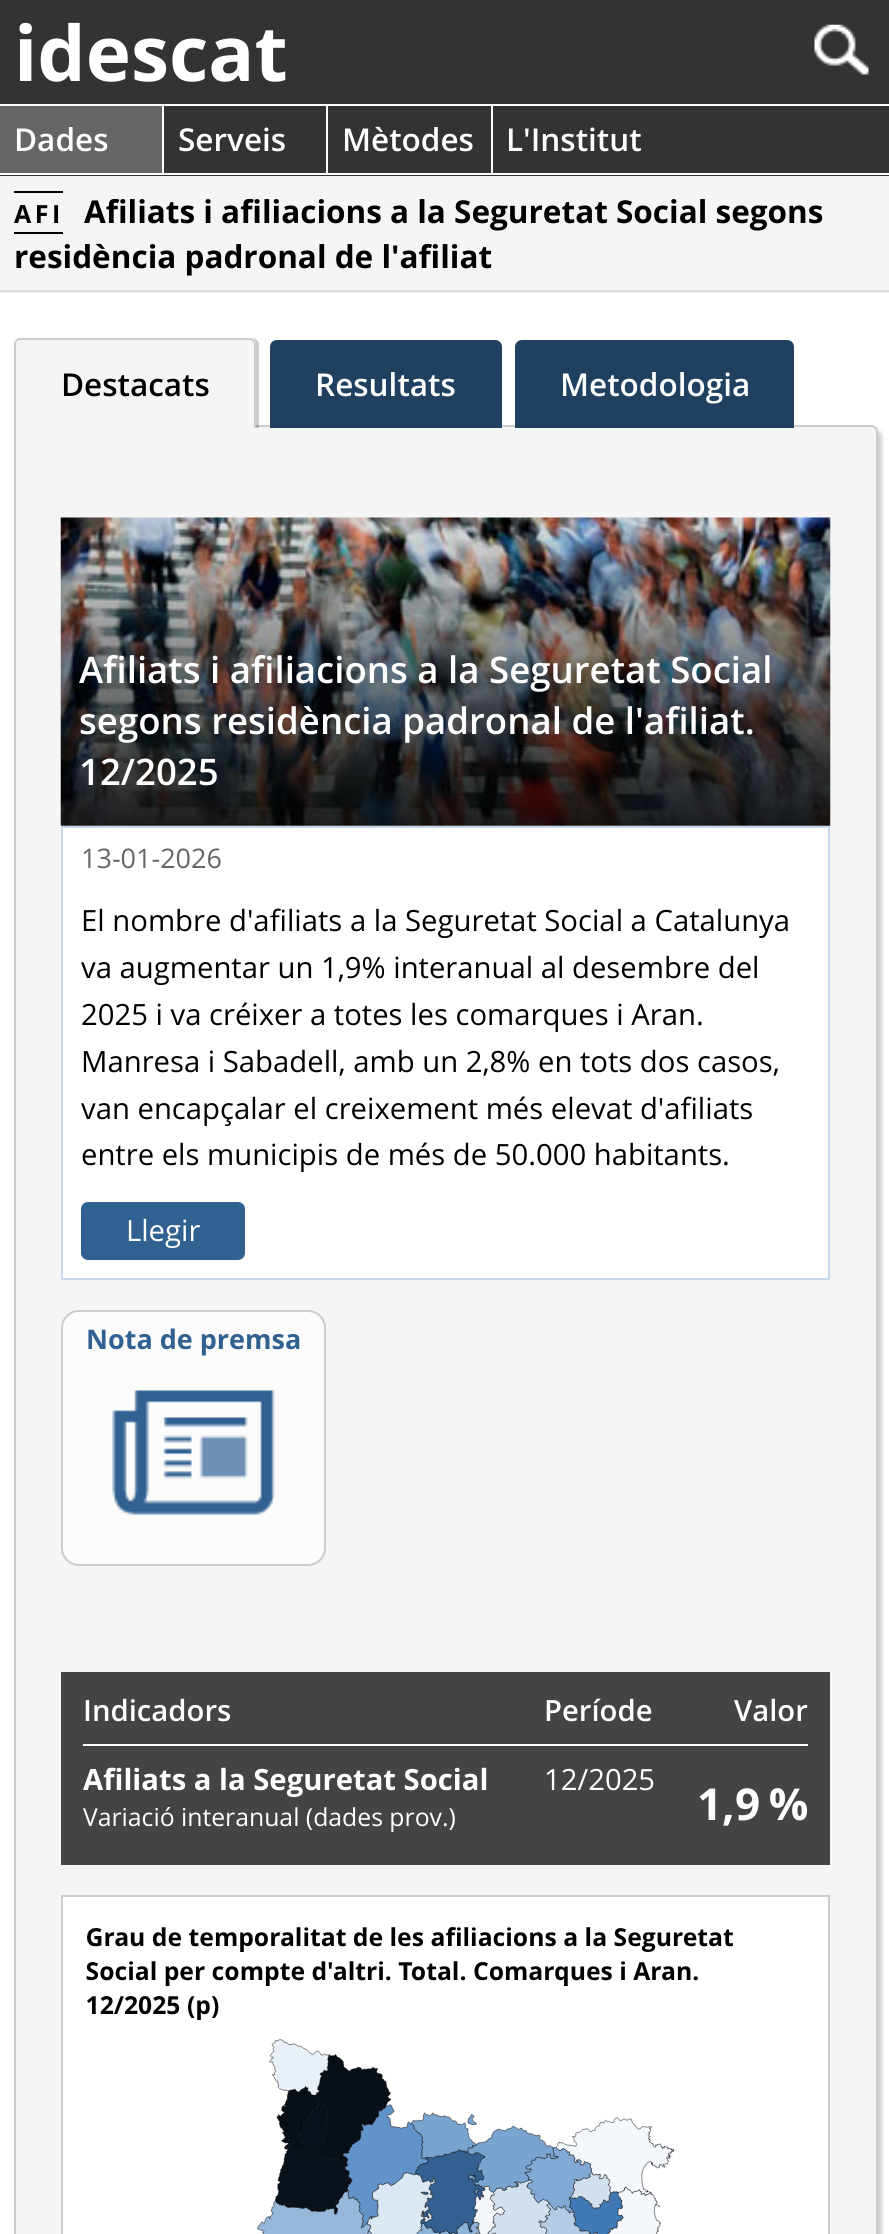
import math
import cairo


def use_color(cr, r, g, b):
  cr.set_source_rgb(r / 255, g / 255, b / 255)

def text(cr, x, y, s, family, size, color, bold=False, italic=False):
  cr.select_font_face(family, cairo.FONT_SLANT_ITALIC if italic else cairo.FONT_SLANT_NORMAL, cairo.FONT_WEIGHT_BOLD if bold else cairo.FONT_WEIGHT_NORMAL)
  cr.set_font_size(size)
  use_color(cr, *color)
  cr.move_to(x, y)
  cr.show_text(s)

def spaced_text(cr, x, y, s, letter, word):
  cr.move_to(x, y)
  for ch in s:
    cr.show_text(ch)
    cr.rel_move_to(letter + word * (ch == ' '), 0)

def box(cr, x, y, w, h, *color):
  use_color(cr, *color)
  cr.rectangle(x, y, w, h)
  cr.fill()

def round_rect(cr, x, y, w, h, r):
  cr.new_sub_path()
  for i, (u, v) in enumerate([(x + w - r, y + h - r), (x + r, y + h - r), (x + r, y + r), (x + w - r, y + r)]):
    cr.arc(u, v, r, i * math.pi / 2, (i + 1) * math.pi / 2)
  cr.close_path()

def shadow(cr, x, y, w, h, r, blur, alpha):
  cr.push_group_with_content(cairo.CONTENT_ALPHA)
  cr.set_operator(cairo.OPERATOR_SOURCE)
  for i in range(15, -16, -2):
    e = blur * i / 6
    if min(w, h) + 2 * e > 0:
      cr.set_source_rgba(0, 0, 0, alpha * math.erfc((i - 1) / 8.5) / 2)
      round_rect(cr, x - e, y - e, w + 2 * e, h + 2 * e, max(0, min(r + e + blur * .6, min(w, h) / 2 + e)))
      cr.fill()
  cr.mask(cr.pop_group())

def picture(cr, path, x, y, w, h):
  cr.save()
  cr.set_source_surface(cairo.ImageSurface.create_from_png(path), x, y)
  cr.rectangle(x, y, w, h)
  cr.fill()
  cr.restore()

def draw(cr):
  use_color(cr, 255, 255, 255)
  cr.paint()
  box(cr, 0, 0, 889, 176, 51, 51, 51)
  box(cr, 0, 104, 889, 2, 255, 255, 255)
  box(cr, 0, 173, 889, 2, 255, 255, 255)
  picture(cr, "img_01.png", 814, 24, 55, 51)
  box(cr, 162, 106, 2, 67, 255, 255, 255)
  box(cr, 0, 106, 162, 67, 102, 102, 102)
  box(cr, 326, 106, 2, 67, 255, 255, 255)
  box(cr, 491, 106, 2, 67, 255, 255, 255)
  box(cr, 0, 176, 889, 117, 245, 245, 245)
  box(cr, 0, 290, 889, 2, 221, 221, 221)
  box(cr, 14, 191, 49, 2, 0, 0, 0)
  box(cr, 14, 232, 49, 2, 0, 0, 0)
  use_color(cr, 0, 0, 0)
  shadow(cr, 18, 430, 864, 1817, 7, 2, 0.2)
  use_color(cr, 245, 245, 245)
  cr.new_path()
  cr.move_to(15, 426)
  cr.line_to(871, 426)
  cr.curve_to(874.5, 426, 877, 428.5, 877, 432)
  cr.line_to(877, 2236)
  cr.curve_to(877, 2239.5, 874.5, 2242, 871, 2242)
  cr.line_to(21, 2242)
  cr.curve_to(17.5, 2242, 15, 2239.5, 15, 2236)
  cr.close_path()
  cr.fill_preserve()
  use_color(cr, 204, 204, 204)
  cr.stroke()
  cr.set_source_rgba(0, 0, 0, 0.2)
  cr.new_path()
  cr.move_to(16, 428)
  cr.line_to(259, 428)
  cr.line_to(259, 345)
  cr.curve_to(259, 341, 256, 338, 252, 338)
  cr.curve_to(255, 339, 256, 341, 256, 344)
  cr.line_to(256, 428)
  cr.close_path()
  cr.fill()
  use_color(cr, 245, 245, 245)
  cr.new_path()
  cr.move_to(21, 340)
  cr.line_to(249, 340)
  cr.curve_to(252, 340, 254, 342, 254, 345)
  cr.line_to(254, 428)
  cr.line_to(16, 428)
  cr.line_to(16, 345)
  cr.curve_to(16, 342, 18, 340, 21, 340)
  cr.close_path()
  cr.fill()
  use_color(cr, 204, 204, 204)
  cr.set_fill_rule(cairo.FILL_RULE_EVEN_ODD)
  cr.new_path()
  cr.move_to(20, 338)
  cr.line_to(250, 338)
  cr.curve_to(253, 338, 256, 341, 256, 344)
  cr.line_to(256, 428)
  cr.line_to(14, 428)
  cr.line_to(14, 344)
  cr.curve_to(14, 341, 17, 338, 20, 338)
  cr.close_path()
  cr.move_to(20, 340)
  cr.line_to(250, 340)
  cr.curve_to(252, 340, 254, 342, 254, 344)
  cr.line_to(254, 428)
  cr.line_to(16, 428)
  cr.line_to(16, 344)
  cr.curve_to(16, 342, 18, 340, 20, 340)
  cr.close_path()
  cr.fill()
  use_color(cr, 32, 64, 96)
  cr.new_path()
  cr.move_to(277, 340)
  cr.line_to(495, 340)
  cr.curve_to(499, 340, 502, 343, 502, 347)
  cr.line_to(502, 428)
  cr.line_to(270, 428)
  cr.line_to(270, 347)
  cr.curve_to(270, 343, 273, 340, 277, 340)
  cr.close_path()
  cr.fill()
  cr.new_path()
  cr.move_to(522, 340)
  cr.line_to(787, 340)
  cr.curve_to(791, 340, 794, 343, 794, 347)
  cr.line_to(794, 428)
  cr.line_to(515, 428)
  cr.line_to(515, 347)
  cr.curve_to(515, 343, 518, 340, 522, 340)
  cr.close_path()
  cr.fill()
  picture(cr, "img_02.png", 60, 517, 771, 309)
  use_color(cr, 255, 255, 255)
  cr.rectangle(62, 827, 767, 452)
  cr.fill_preserve()
  use_color(cr, 198, 217, 236)
  cr.stroke()
  use_color(cr, 48, 97, 145)
  round_rect(cr, 81, 1202, 164, 58, 7)
  cr.fill()
  use_color(cr, 252, 252, 252)
  round_rect(cr, 62, 1311, 263, 254, 17)
  cr.fill_preserve()
  use_color(cr, 204, 204, 204)
  cr.stroke()
  picture(cr, "img_03.png", 112, 1390, 163, 125)
  box(cr, 83, 1672, 725, 128, 68, 68, 68)
  box(cr, 808, 1672, 22, 193, 68, 68, 68)
  box(cr, 61, 1672, 22, 193, 68, 68, 68)
  box(cr, 83, 1800, 725, 65, 68, 68, 68)
  box(cr, 83, 1744, 725, 2, 255, 255, 255)
  cr.rectangle(62, 1896, 767, 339)
  use_color(cr, 204, 204, 204)
  cr.stroke()
  picture(cr, "img_04.png", 63, 1897, 765, 337)
  text(cr, 14, 81, "idescat", "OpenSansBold", 76.5, (255, 255, 255), bold=True)
  text(cr, 14, 151, "Dades", "Open Sans SemiBold", 31.5, (255, 255, 255))
  text(cr, 178, 151, "Serveis", "Open Sans SemiBold", 31.5, (255, 255, 255))
  text(cr, 342, 151, "Mètodes", "Open Sans SemiBold", 31.5, (255, 255, 255))
  text(cr, 506, 151, "L'Institut", "Open Sans SemiBold", 31.5, (255, 255, 255))
  cr.select_font_face("OpenSansBold", cairo.FONT_SLANT_NORMAL, cairo.FONT_WEIGHT_BOLD)
  cr.set_font_size(25)
  use_color(cr, 0, 0, 0)
  spaced_text(cr, 14, 223, "AFI", 3.5, 0)
  text(cr, 84, 223, "Afiliats i afiliacions a la Seguretat Social segons", "OpenSansBold", 31.5, (0, 0, 0), bold=True)
  text(cr, 14, 268, "residència padronal de l'afiliat", "OpenSansBold", 31.5, (0, 0, 0), bold=True)
  text(cr, 61, 396, "Destacats", "Open Sans SemiBold", 31.5, (0, 0, 0))
  text(cr, 315, 396, "Resultats", "Open Sans SemiBold", 31.5, (255, 255, 255))
  text(cr, 560, 396, "Metodologia", "Open Sans SemiBold", 31.5, (255, 255, 255))
  text(cr, 79, 683, "Afiliats i afiliacions a la Seguretat Social", "Open Sans SemiBold", 36.6, (255, 255, 255))
  text(cr, 79, 734, "segons residència padronal de l'afiliat.", "Open Sans SemiBold", 36.6, (255, 255, 255))
  text(cr, 79, 785, "12/2025", "Open Sans SemiBold", 36.6, (255, 255, 255))
  text(cr, 81, 868, "13-01-2026", "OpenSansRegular", 27, (102, 102, 102))
  text(cr, 81, 931, "El nombre d'afiliats a la Seguretat Social a Catalunya", "OpenSansRegular", 29.25, (0, 0, 0))
  text(cr, 81, 978, "va augmentar un 1,9% interanual al desembre del", "OpenSansRegular", 29.25, (0, 0, 0))
  text(cr, 81, 1025, "2025 i va créixer a totes les comarques i Aran.", "OpenSansRegular", 29.25, (0, 0, 0))
  text(cr, 81, 1072, "Manresa i Sabadell, amb un 2,8% en tots dos casos,", "OpenSansRegular", 29.25, (0, 0, 0))
  text(cr, 81, 1119, "van encapçalar el creixement més elevat d'afiliats", "OpenSansRegular", 29.25, (0, 0, 0))
  text(cr, 81, 1165, "entre els municipis de més de 50.000 habitants.", "OpenSansRegular", 29.25, (0, 0, 0))
  text(cr, 126, 1241, "Llegir", "OpenSansRegular", 29.25, (255, 255, 255))
  text(cr, 86, 1349, "Nota de premsa", "OpenSansBold", 27, (48, 97, 145), bold=True)
  text(cr, 83, 1721, "Indicadors", "Open Sans SemiBold", 29.25, (255, 255, 255))
  text(cr, 544, 1721, "Període", "Open Sans SemiBold", 29.25, (255, 255, 255))
  text(cr, 734, 1721, "Valor", "Open Sans SemiBold", 29.25, (255, 255, 255))
  text(cr, 83, 1790, "Afiliats a la Seguretat Social", "OpenSansBold", 29.25, (255, 255, 255), bold=True)
  text(cr, 544, 1790, "12/2025", "OpenSansRegular", 29.25, (255, 255, 255))
  text(cr, 697, 1820, "1,9 %", "OpenSansBold", 44, (255, 255, 255), bold=True)
  text(cr, 83, 1826, "Variació interanual (dades prov.)", "OpenSansRegular", 24.75, (255, 255, 255))


surface = cairo.ImageSurface(cairo.FORMAT_RGB24, 889, 2234)
cr = cairo.Context(surface)
options = cairo.FontOptions()
options.set_hint_metrics(cairo.HINT_METRICS_OFF)
options.set_hint_style(cairo.HINT_STYLE_NONE)
cr.set_font_options(options)
cr.set_miter_limit(4)
draw(cr)
surface.write_to_png("out.png")
